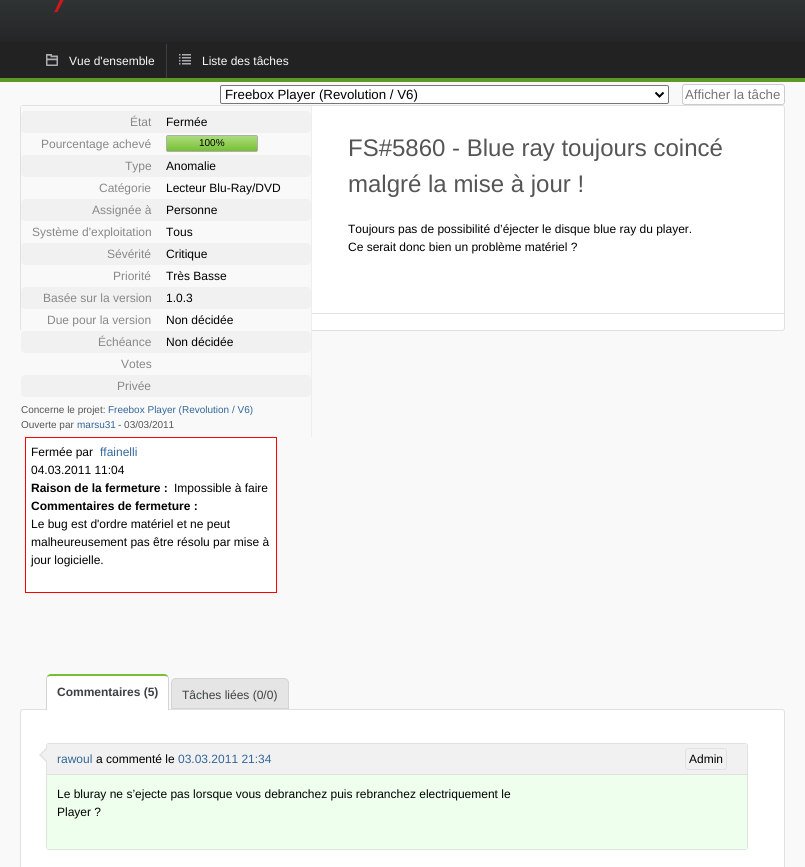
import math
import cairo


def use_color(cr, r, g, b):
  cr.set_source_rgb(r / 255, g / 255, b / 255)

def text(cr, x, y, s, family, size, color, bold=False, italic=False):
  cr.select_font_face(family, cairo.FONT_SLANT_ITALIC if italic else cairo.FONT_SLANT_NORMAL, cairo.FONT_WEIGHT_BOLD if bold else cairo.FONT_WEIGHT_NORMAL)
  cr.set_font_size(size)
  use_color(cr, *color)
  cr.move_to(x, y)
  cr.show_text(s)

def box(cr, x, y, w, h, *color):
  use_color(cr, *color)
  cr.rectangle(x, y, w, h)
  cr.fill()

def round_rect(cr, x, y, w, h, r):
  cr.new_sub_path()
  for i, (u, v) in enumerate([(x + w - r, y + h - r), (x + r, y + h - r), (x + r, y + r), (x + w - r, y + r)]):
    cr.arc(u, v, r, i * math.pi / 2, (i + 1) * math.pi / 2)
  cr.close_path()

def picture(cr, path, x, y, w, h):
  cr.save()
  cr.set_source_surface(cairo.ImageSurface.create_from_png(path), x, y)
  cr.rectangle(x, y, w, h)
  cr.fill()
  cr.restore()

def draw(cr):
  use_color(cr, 249, 249, 249)
  cr.paint()
  gradient = cairo.LinearGradient(403, -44, 403, 42)
  gradient.add_color_stop_rgba(0, 0.235, 0.251, 0.255, 1)
  gradient.add_color_stop_rgba(1, 0.141, 0.149, 0.153, 1)
  cr.set_source(gradient)
  cr.rectangle(0, 0, 805, 42)
  cr.fill()
  picture(cr, "img_01.png", 54, 0, 10, 13)
  box(cr, 0, 42, 805, 36, 34, 34, 34)
  box(cr, 0, 78, 805, 4, 95, 151, 41)
  picture(cr, "img_02.png", 46, 54, 12, 12)
  picture(cr, "img_03.png", 179, 54, 12, 11)
  box(cr, 166, 44, 1, 34, 60, 64, 65)
  use_color(cr, 255, 255, 255)
  round_rect(cr, 220.5, 85.5, 448, 18, 1.5)
  cr.fill_preserve()
  use_color(cr, 118, 118, 118)
  cr.set_line_width(1)
  cr.stroke()
  cr.new_path()
  cr.move_to(655.5, 92.5)
  cr.line_to(659.5, 96.5)
  cr.line_to(663.5, 92.5)
  use_color(cr, 0, 0, 0)
  cr.set_line_width(2)
  cr.stroke()
  use_color(cr, 255, 255, 255)
  round_rect(cr, 682.5, 84.5, 102, 20, 2.5)
  cr.fill_preserve()
  use_color(cr, 204, 204, 204)
  cr.set_line_width(1)
  cr.stroke()
  use_color(cr, 255, 255, 255)
  round_rect(cr, 20.5, 105.5, 764, 225, 2.5)
  cr.fill_preserve()
  use_color(cr, 225, 225, 225)
  cr.stroke()
  box(cr, 21, 106, 290, 225, 249, 249, 249)
  box(cr, 311, 106, 1, 331, 238, 238, 238)
  use_color(cr, 241, 241, 241)
  round_rect(cr, 21, 111, 290, 22, 4)
  cr.fill()
  round_rect(cr, 166.5, 135.5, 91, 16, 1.5)
  use_color(cr, 174, 174, 174)
  cr.stroke()
  gradient = cairo.LinearGradient(212, 136, 212, 151)
  gradient.add_color_stop_rgba(0, 0.675, 0.863, 0.49, 1)
  gradient.add_color_stop_rgba(1, 0.471, 0.749, 0.204, 1)
  cr.set_source(gradient)
  cr.rectangle(167, 136, 90, 15)
  cr.fill()
  use_color(cr, 241, 241, 241)
  round_rect(cr, 21, 155, 290, 22, 4)
  cr.fill()
  round_rect(cr, 21, 199, 290, 22, 4)
  cr.fill()
  round_rect(cr, 21, 243, 290, 22, 4)
  cr.fill()
  round_rect(cr, 21, 287, 290, 22, 4)
  cr.fill()
  round_rect(cr, 21, 331, 290, 22, 4)
  cr.fill()
  round_rect(cr, 21, 375, 290, 22, 4)
  cr.fill()
  box(cr, 312, 313, 472, 1, 225, 225, 225)
  use_color(cr, 255, 255, 255)
  cr.rectangle(25.5, 437.5, 251, 155)
  cr.fill_preserve()
  use_color(cr, 255, 0, 0)
  cr.stroke()
  use_color(cr, 255, 255, 255)
  round_rect(cr, 20.5, 709.5, 764, 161, 2.5)
  cr.fill_preserve()
  use_color(cr, 225, 225, 225)
  cr.stroke()
  use_color(cr, 255, 255, 255)
  cr.new_path()
  cr.move_to(51, 676)
  cr.line_to(164, 676)
  cr.curve_to(166, 676, 168, 677, 168, 679)
  cr.line_to(168, 710)
  cr.line_to(47, 710)
  cr.line_to(47, 679)
  cr.curve_to(47, 677, 49, 676, 51, 676)
  cr.close_path()
  cr.fill()
  use_color(cr, 120, 191, 52)
  cr.new_path()
  cr.move_to(51, 674)
  cr.curve_to(49, 674, 48, 675, 47, 676)
  cr.line_to(48, 677)
  cr.curve_to(48, 676, 50, 676, 51, 676)
  cr.line_to(164, 676)
  cr.curve_to(165, 676, 167, 676, 167, 677)
  cr.line_to(168, 676)
  cr.curve_to(167, 675, 166, 674, 164, 674)
  cr.close_path()
  cr.fill()
  use_color(cr, 212, 212, 212)
  cr.new_path()
  cr.move_to(169, 711)
  cr.line_to(169, 679)
  cr.curve_to(169, 678, 168.5, 676.5, 168, 676)
  cr.line_to(167.5, 677.5)
  cr.curve_to(168, 677.5, 168, 678.5, 168, 679)
  cr.line_to(168, 710)
  cr.close_path()
  cr.fill()
  use_color(cr, 255, 255, 255)
  cr.new_path()
  cr.move_to(169, 711)
  cr.line_to(168, 710)
  cr.line_to(47, 710)
  cr.line_to(46, 711)
  cr.close_path()
  cr.fill()
  use_color(cr, 212, 212, 212)
  cr.new_path()
  cr.move_to(46, 711)
  cr.line_to(47, 710)
  cr.line_to(47, 679)
  cr.curve_to(47, 678.5, 47, 677.5, 47.5, 677.5)
  cr.line_to(47, 676)
  cr.curve_to(46.5, 676.5, 46, 678, 46, 679)
  cr.close_path()
  cr.fill()
  use_color(cr, 229, 229, 229)
  cr.new_path()
  cr.move_to(176, 678.5)
  cr.line_to(284, 678.5)
  cr.curve_to(286.5, 678.5, 288.5, 680.5, 288.5, 683)
  cr.line_to(288.5, 708.5)
  cr.line_to(171.5, 708.5)
  cr.line_to(171.5, 683)
  cr.curve_to(171.5, 680.5, 173.5, 678.5, 176, 678.5)
  cr.close_path()
  cr.fill_preserve()
  use_color(cr, 212, 212, 212)
  cr.stroke()
  round_rect(cr, 46.5, 743.5, 701, 106, 2.5)
  use_color(cr, 225, 225, 225)
  cr.stroke()
  cr.new_path()
  cr.move_to(47, 747)
  cr.line_to(47, 763)
  cr.line_to(39, 755)
  cr.close_path()
  cr.fill()
  use_color(cr, 241, 241, 241)
  cr.new_path()
  cr.move_to(47, 749)
  cr.line_to(47, 761)
  cr.line_to(41, 755)
  cr.close_path()
  cr.fill()
  box(cr, 47, 744, 700, 30, 241, 241, 241)
  box(cr, 47, 774, 700, 1, 225, 225, 225)
  round_rect(cr, 685.5, 748.5, 41, 21, 2.5)
  cr.stroke()
  box(cr, 47, 775, 700, 74, 238, 255, 238)
  text(cr, 69, 65, "Vue d'ensemble", "Liberation Sans", 12, (249, 249, 249))
  text(cr, 202, 65, "Liste des tâches", "Liberation Sans", 12, (249, 249, 249))
  text(cr, 225, 99, "Freebox Player (Revolution / V6)", "Liberation Sans", 13.3, (0, 0, 0))
  text(cr, 685, 99, "Afficher la tâche", "Liberation Sans", 13.3, (117, 117, 117))
  text(cr, 130, 126, "État", "Liberation Sans", 12, (136, 136, 136))
  text(cr, 166, 126, "Fermée", "Liberation Sans", 12, (0, 0, 0))
  text(cr, 41, 148, "Pourcentage achevé", "Liberation Sans", 12, (136, 136, 136))
  text(cr, 199, 146, "100%", "Liberation Sans", 10, (0, 0, 0))
  text(cr, 125, 170, "Type", "Liberation Sans", 12, (136, 136, 136))
  text(cr, 166, 170, "Anomalie", "Liberation Sans", 12, (0, 0, 0))
  text(cr, 99, 192, "Catégorie", "Liberation Sans", 12, (136, 136, 136))
  text(cr, 166, 192, "Lecteur Blu-Ray/DVD", "Liberation Sans", 12, (0, 0, 0))
  text(cr, 92, 214, "Assignée à", "Liberation Sans", 12, (136, 136, 136))
  text(cr, 166, 214, "Personne", "Liberation Sans", 12, (0, 0, 0))
  text(cr, 32, 236, "Système d'exploitation", "Liberation Sans", 12, (136, 136, 136))
  text(cr, 166, 236, "Tous", "Liberation Sans", 12, (0, 0, 0))
  text(cr, 107, 258, "Sévérité", "Liberation Sans", 12, (136, 136, 136))
  text(cr, 166, 258, "Critique", "Liberation Sans", 12, (0, 0, 0))
  text(cr, 113, 280, "Priorité", "Liberation Sans", 12, (136, 136, 136))
  text(cr, 166, 280, "Très Basse", "Liberation Sans", 12, (0, 0, 0))
  text(cr, 43, 302, "Basée sur la version", "Liberation Sans", 12, (136, 136, 136))
  text(cr, 166, 302, "1.0.3", "Liberation Sans", 12, (0, 0, 0))
  text(cr, 47, 324, "Due pour la version", "Liberation Sans", 12, (136, 136, 136))
  text(cr, 166, 324, "Non décidée", "Liberation Sans", 12, (0, 0, 0))
  text(cr, 98, 346, "Échéance", "Liberation Sans", 12, (136, 136, 136))
  text(cr, 166, 346, "Non décidée", "Liberation Sans", 12, (0, 0, 0))
  text(cr, 121, 368, "Votes", "Liberation Sans", 12, (136, 136, 136))
  text(cr, 117, 390, "Privée", "Liberation Sans", 12, (136, 136, 136))
  text(cr, 21, 413, "Concerne le projet:", "Liberation Sans", 10, (85, 85, 85))
  text(cr, 108, 413, "Freebox Player (Revolution / V6)", "Liberation Sans", 10, (51, 102, 153))
  text(cr, 21, 428, "Ouverte par", "Liberation Sans", 10, (85, 85, 85))
  text(cr, 77, 428, "marsu31", "Liberation Sans", 10, (51, 102, 153))
  text(cr, 118, 428, "- 03/03/2011", "Liberation Sans", 10, (85, 85, 85))
  text(cr, 348, 156, "FS#5860 - Blue ray toujours coincé", "Liberation Sans", 24, (85, 85, 85))
  text(cr, 348, 192, "malgré la mise à jour !", "Liberation Sans", 24, (85, 85, 85))
  text(cr, 348, 233, "Toujours pas de possibilité d’éjecter le disque blue ray du player.", "Liberation Sans", 12, (0, 0, 0))
  text(cr, 348, 251, "Ce serait donc bien un problème matériel ?", "Liberation Sans", 12, (0, 0, 0))
  text(cr, 31, 456, "Fermée par", "Liberation Sans", 12, (0, 0, 0))
  text(cr, 100, 456, "ffainelli", "Liberation Sans", 12, (51, 102, 153))
  text(cr, 31, 474, "04.03.2011 11:04", "Liberation Sans", 12, (0, 0, 0))
  text(cr, 31, 492, "Raison de la fermeture :", "Liberation Sans", 12, (0, 0, 0), bold=True)
  text(cr, 174, 492, "Impossible à faire", "Liberation Sans", 12, (0, 0, 0))
  text(cr, 31, 510, "Commentaires de fermeture :", "Liberation Sans", 12, (0, 0, 0), bold=True)
  text(cr, 31, 528, "Le bug est d'ordre matériel et ne peut", "Liberation Sans", 12, (0, 0, 0))
  text(cr, 31, 546, "malheureusement pas être résolu par mise à", "Liberation Sans", 12, (0, 0, 0))
  text(cr, 31, 564, "jour logicielle.", "Liberation Sans", 12, (0, 0, 0))
  text(cr, 57, 696, "Commentaires (5)", "Liberation Sans", 12, (60, 64, 65), bold=True)
  text(cr, 182, 699, "Tâches liées (0/0)", "Liberation Sans", 12, (60, 64, 65))
  text(cr, 57, 763, "rawoul", "Liberation Sans", 12, (51, 102, 153))
  text(cr, 96, 763, "a commenté le", "Liberation Sans", 12, (0, 0, 0))
  text(cr, 178, 763, "03.03.2011 21:34", "Liberation Sans", 12, (51, 102, 153))
  text(cr, 689, 763, "Admin", "Liberation Sans", 12, (0, 0, 0))
  text(cr, 57, 798, "Le bluray ne s’ejecte pas lorsque vous debranchez puis rebranchez electriquement le", "Liberation Sans", 12, (0, 0, 0))
  text(cr, 57, 816, "Player ?", "Liberation Sans", 12, (0, 0, 0))


surface = cairo.ImageSurface(cairo.FORMAT_RGB24, 805, 867)
cr = cairo.Context(surface)
options = cairo.FontOptions()
options.set_hint_metrics(cairo.HINT_METRICS_OFF)
options.set_hint_style(cairo.HINT_STYLE_NONE)
cr.set_font_options(options)
cr.set_miter_limit(4)
draw(cr)
surface.write_to_png("out.png")
